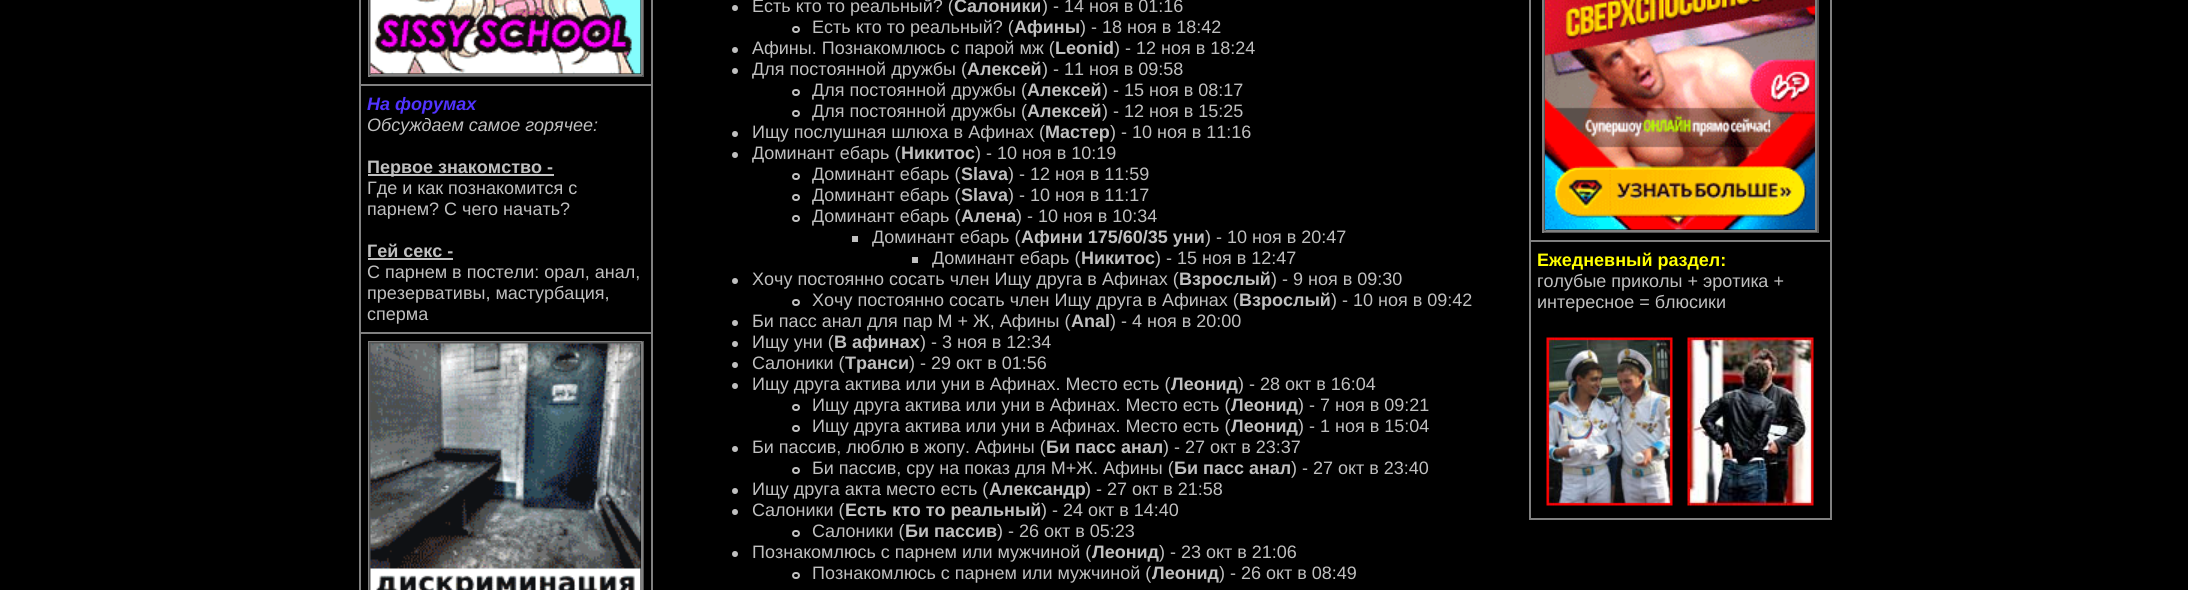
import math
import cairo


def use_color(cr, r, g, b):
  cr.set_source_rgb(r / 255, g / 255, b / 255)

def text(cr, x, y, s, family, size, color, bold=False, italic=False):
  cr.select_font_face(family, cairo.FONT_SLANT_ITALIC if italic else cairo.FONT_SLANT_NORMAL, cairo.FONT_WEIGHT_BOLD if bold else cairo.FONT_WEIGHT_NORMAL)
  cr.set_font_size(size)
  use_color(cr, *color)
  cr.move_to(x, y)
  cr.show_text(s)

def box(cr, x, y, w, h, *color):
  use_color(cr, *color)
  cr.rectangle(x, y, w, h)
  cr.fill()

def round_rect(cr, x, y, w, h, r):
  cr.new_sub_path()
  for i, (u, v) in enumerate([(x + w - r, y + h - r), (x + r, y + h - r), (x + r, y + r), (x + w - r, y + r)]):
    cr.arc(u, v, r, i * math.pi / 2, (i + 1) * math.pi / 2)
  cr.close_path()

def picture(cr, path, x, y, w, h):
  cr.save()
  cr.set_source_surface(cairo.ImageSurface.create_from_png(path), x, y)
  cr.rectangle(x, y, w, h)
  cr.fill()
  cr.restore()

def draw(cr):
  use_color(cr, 0, 0, 0)
  cr.paint()
  box(cr, 651, 0, 2, 590, 128, 128, 128)
  box(cr, 359, 0, 2, 590, 128, 128, 128)
  box(cr, 643, 0, 1, 77, 85, 85, 85)
  box(cr, 368, 75, 276, 2, 85, 85, 85)
  box(cr, 368, 0, 2, 77, 128, 128, 128)
  box(cr, 641, 0, 2, 75, 128, 128, 128)
  box(cr, 369, 74, 273, 2, 128, 128, 128)
  box(cr, 369, 0, 2, 75, 85, 85, 85)
  picture(cr, "img_01.png", 370, 0, 271, 74)
  box(cr, 359, 84, 294, 2, 128, 128, 128)
  box(cr, 368, 174, 186, 2, 192, 192, 192)
  box(cr, 368, 258, 85, 2, 192, 192, 192)
  box(cr, 359, 332, 294, 2, 128, 128, 128)
  box(cr, 368, 341, 276, 1, 128, 128, 128)
  box(cr, 642, 341, 2, 249, 85, 85, 85)
  box(cr, 368, 341, 2, 249, 128, 128, 128)
  box(cr, 369, 342, 273, 2, 85, 85, 85)
  box(cr, 641, 342, 2, 248, 128, 128, 128)
  box(cr, 369, 342, 2, 248, 85, 85, 85)
  picture(cr, "img_02.png", 370, 343, 271, 247)
  use_color(cr, 192, 192, 192)
  cr.arc(735, 8, 3, 0, 2 * math.pi)
  cr.fill()
  round_rect(cr, 793, 27, 6, 5, 2.5)
  cr.stroke()
  cr.arc(735, 50, 3, 0, 2 * math.pi)
  cr.fill()
  cr.arc(735, 71, 3, 0, 2 * math.pi)
  cr.fill()
  round_rect(cr, 793, 90, 6, 5, 2.5)
  cr.stroke()
  round_rect(cr, 793, 111, 6, 5, 2.5)
  cr.stroke()
  cr.arc(735, 134, 3, 0, 2 * math.pi)
  cr.fill()
  cr.arc(735, 155, 3, 0, 2 * math.pi)
  cr.fill()
  round_rect(cr, 793, 174, 6, 5, 2.5)
  cr.stroke()
  round_rect(cr, 793, 195, 6, 5, 2.5)
  cr.stroke()
  round_rect(cr, 793, 216, 6, 5, 2.5)
  cr.stroke()
  box(cr, 852, 236, 6, 6, 192, 192, 192)
  box(cr, 912, 257, 6, 6, 192, 192, 192)
  cr.arc(735, 281, 3, 0, 2 * math.pi)
  cr.fill()
  round_rect(cr, 793, 300, 6, 5, 2.5)
  cr.stroke()
  cr.arc(735, 323, 3, 0, 2 * math.pi)
  cr.fill()
  cr.arc(735, 344, 3, 0, 2 * math.pi)
  cr.fill()
  cr.arc(735, 365, 3, 0, 2 * math.pi)
  cr.fill()
  cr.arc(735, 386, 3, 0, 2 * math.pi)
  cr.fill()
  round_rect(cr, 793, 405, 6, 5, 2.5)
  cr.stroke()
  round_rect(cr, 793, 426, 6, 5, 2.5)
  cr.stroke()
  cr.arc(735, 449, 3, 0, 2 * math.pi)
  cr.fill()
  round_rect(cr, 793, 468, 6, 5, 2.5)
  cr.stroke()
  cr.arc(735, 491, 3, 0, 2 * math.pi)
  cr.fill()
  cr.arc(735, 512, 3, 0, 2 * math.pi)
  cr.fill()
  round_rect(cr, 793, 531, 6, 5, 2.5)
  cr.stroke()
  cr.arc(735, 554, 3, 0, 2 * math.pi)
  cr.fill()
  round_rect(cr, 793, 573, 6, 5, 2.5)
  cr.stroke()
  box(cr, 1830, 0, 2, 519, 128, 128, 128)
  box(cr, 1529, 518, 303, 2, 128, 128, 128)
  box(cr, 1529, 0, 2, 519, 128, 128, 128)
  box(cr, 1817, 0, 2, 233, 85, 85, 85)
  box(cr, 1542, 231, 276, 2, 85, 85, 85)
  box(cr, 1542, 0, 2, 233, 128, 128, 128)
  box(cr, 1815, 0, 2, 231, 128, 128, 128)
  box(cr, 1544, 230, 273, 2, 128, 128, 128)
  box(cr, 1544, 0, 2, 231, 85, 85, 85)
  picture(cr, "img_03.png", 1545, 0, 270, 230)
  box(cr, 1529, 240, 303, 2, 128, 128, 128)
  picture(cr, "img_04.png", 1546, 337, 127, 169)
  picture(cr, "img_05.png", 1687, 337, 127, 169)
  text(cr, 367, 110, "На форумах", "Liberation Sans", 18, (81, 51, 255), bold=True, italic=True)
  text(cr, 367, 131, "Обсуждаем самое горячее:", "Liberation Sans", 18, (192, 192, 192), italic=True)
  text(cr, 367, 173, "Первое знакомство -", "Liberation Sans", 18, (192, 192, 192), bold=True)
  text(cr, 367, 194, "Где и как познакомится с", "Liberation Sans", 18, (192, 192, 192))
  text(cr, 367, 215, "парнем? С чего начать?", "Liberation Sans", 18, (192, 192, 192))
  text(cr, 367, 257, "Гей секс -", "Liberation Sans", 18, (192, 192, 192), bold=True)
  text(cr, 367, 278, "С парнем в постели: орал, анал,", "Liberation Sans", 18, (192, 192, 192))
  text(cr, 367, 299, "презервативы, мастурбация,", "Liberation Sans", 18, (192, 192, 192))
  text(cr, 367, 320, "сперма", "Liberation Sans", 18, (192, 192, 192))
  text(cr, 752, 12, "Есть кто то реальный? (", "Liberation Sans", 18, (192, 192, 192))
  text(cr, 954, 12, "Салоники", "Liberation Sans", 18, (192, 192, 192), bold=True)
  text(cr, 1042, 12, ") - 14 ноя в 01:16", "Liberation Sans", 18, (192, 192, 192))
  text(cr, 812, 33, "Есть кто то реальный? (", "Liberation Sans", 18, (192, 192, 192))
  text(cr, 1014, 33, "Афины", "Liberation Sans", 18, (192, 192, 192), bold=True)
  text(cr, 1080, 33, ") - 18 ноя в 18:42", "Liberation Sans", 18, (192, 192, 192))
  text(cr, 752, 54, "Афины. Познакомлюсь с парой мж (", "Liberation Sans", 18, (192, 192, 192))
  text(cr, 1055, 54, "Leonid", "Liberation Sans", 18, (192, 192, 192), bold=True)
  text(cr, 1114, 54, ") - 12 ноя в 18:24", "Liberation Sans", 18, (192, 192, 192))
  text(cr, 752, 75, "Для постоянной дружбы (", "Liberation Sans", 18, (192, 192, 192))
  text(cr, 967, 75, "Алексей", "Liberation Sans", 18, (192, 192, 192), bold=True)
  text(cr, 1042, 75, ") - 11 ноя в 09:58", "Liberation Sans", 18, (192, 192, 192))
  text(cr, 812, 96, "Для постоянной дружбы (", "Liberation Sans", 18, (192, 192, 192))
  text(cr, 1027, 96, "Алексей", "Liberation Sans", 18, (192, 192, 192), bold=True)
  text(cr, 1102, 96, ") - 15 ноя в 08:17", "Liberation Sans", 18, (192, 192, 192))
  text(cr, 812, 117, "Для постоянной дружбы (", "Liberation Sans", 18, (192, 192, 192))
  text(cr, 1027, 117, "Алексей", "Liberation Sans", 18, (192, 192, 192), bold=True)
  text(cr, 1102, 117, ") - 12 ноя в 15:25", "Liberation Sans", 18, (192, 192, 192))
  text(cr, 752, 138, "Ищу послушная шлюха в Афинах (", "Liberation Sans", 18, (192, 192, 192))
  text(cr, 1045, 138, "Мастер", "Liberation Sans", 18, (192, 192, 192), bold=True)
  text(cr, 1110, 138, ") - 10 ноя в 11:16", "Liberation Sans", 18, (192, 192, 192))
  text(cr, 752, 159, "Доминант ебарь (", "Liberation Sans", 18, (192, 192, 192))
  text(cr, 901, 159, "Никитос", "Liberation Sans", 18, (192, 192, 192), bold=True)
  text(cr, 975, 159, ") - 10 ноя в 10:19", "Liberation Sans", 18, (192, 192, 192))
  text(cr, 812, 180, "Доминант ебарь (", "Liberation Sans", 18, (192, 192, 192))
  text(cr, 961, 180, "Slava", "Liberation Sans", 18, (192, 192, 192), bold=True)
  text(cr, 1008, 180, ") - 12 ноя в 11:59", "Liberation Sans", 18, (192, 192, 192))
  text(cr, 812, 201, "Доминант ебарь (", "Liberation Sans", 18, (192, 192, 192))
  text(cr, 961, 201, "Slava", "Liberation Sans", 18, (192, 192, 192), bold=True)
  text(cr, 1008, 201, ") - 10 ноя в 11:17", "Liberation Sans", 18, (192, 192, 192))
  text(cr, 812, 222, "Доминант ебарь (", "Liberation Sans", 18, (192, 192, 192))
  text(cr, 961, 222, "Алена", "Liberation Sans", 18, (192, 192, 192), bold=True)
  text(cr, 1016, 222, ") - 10 ноя в 10:34", "Liberation Sans", 18, (192, 192, 192))
  text(cr, 872, 243, "Доминант ебарь (", "Liberation Sans", 18, (192, 192, 192))
  text(cr, 1021, 243, "Афини 175/60/35 уни", "Liberation Sans", 18, (192, 192, 192), bold=True)
  text(cr, 1205, 243, ") - 10 ноя в 20:47", "Liberation Sans", 18, (192, 192, 192))
  text(cr, 932, 264, "Доминант ебарь (", "Liberation Sans", 18, (192, 192, 192))
  text(cr, 1081, 264, "Никитос", "Liberation Sans", 18, (192, 192, 192), bold=True)
  text(cr, 1155, 264, ") - 15 ноя в 12:47", "Liberation Sans", 18, (192, 192, 192))
  text(cr, 752, 285, "Хочу постоянно сосать член Ищу друга в Афинах (", "Liberation Sans", 18, (192, 192, 192))
  text(cr, 1179, 285, "Взрослый", "Liberation Sans", 18, (192, 192, 192), bold=True)
  text(cr, 1271, 285, ") - 9 ноя в 09:30", "Liberation Sans", 18, (192, 192, 192))
  text(cr, 812, 306, "Хочу постоянно сосать член Ищу друга в Афинах (", "Liberation Sans", 18, (192, 192, 192))
  text(cr, 1239, 306, "Взрослый", "Liberation Sans", 18, (192, 192, 192), bold=True)
  text(cr, 1331, 306, ") - 10 ноя в 09:42", "Liberation Sans", 18, (192, 192, 192))
  text(cr, 752, 327, "Би пасс анал для пар М + Ж, Афины (", "Liberation Sans", 18, (192, 192, 192))
  text(cr, 1071, 327, "Anal", "Liberation Sans", 18, (192, 192, 192), bold=True)
  text(cr, 1110, 327, ") - 4 ноя в 20:00", "Liberation Sans", 18, (192, 192, 192))
  text(cr, 752, 348, "Ищу уни (", "Liberation Sans", 18, (192, 192, 192))
  text(cr, 834, 348, "В афинах", "Liberation Sans", 18, (192, 192, 192), bold=True)
  text(cr, 920, 348, ") - 3 ноя в 12:34", "Liberation Sans", 18, (192, 192, 192))
  text(cr, 752, 369, "Салоники (", "Liberation Sans", 18, (192, 192, 192))
  text(cr, 845, 369, "Транси", "Liberation Sans", 18, (192, 192, 192), bold=True)
  text(cr, 909, 369, ") - 29 окт в 01:56", "Liberation Sans", 18, (192, 192, 192))
  text(cr, 752, 390, "Ищу друга актива или уни в Афинах. Место есть (", "Liberation Sans", 18, (192, 192, 192))
  text(cr, 1171, 390, "Леонид", "Liberation Sans", 18, (192, 192, 192), bold=True)
  text(cr, 1238, 390, ") - 28 окт в 16:04", "Liberation Sans", 18, (192, 192, 192))
  text(cr, 812, 411, "Ищу друга актива или уни в Афинах. Место есть (", "Liberation Sans", 18, (192, 192, 192))
  text(cr, 1231, 411, "Леонид", "Liberation Sans", 18, (192, 192, 192), bold=True)
  text(cr, 1298, 411, ") - 7 ноя в 09:21", "Liberation Sans", 18, (192, 192, 192))
  text(cr, 812, 432, "Ищу друга актива или уни в Афинах. Место есть (", "Liberation Sans", 18, (192, 192, 192))
  text(cr, 1231, 432, "Леонид", "Liberation Sans", 18, (192, 192, 192), bold=True)
  text(cr, 1298, 432, ") - 1 ноя в 15:04", "Liberation Sans", 18, (192, 192, 192))
  text(cr, 752, 453, "Би пассив, люблю в жопу. Афины (", "Liberation Sans", 18, (192, 192, 192))
  text(cr, 1046, 453, "Би пасс анал", "Liberation Sans", 18, (192, 192, 192), bold=True)
  text(cr, 1163, 453, ") - 27 окт в 23:37", "Liberation Sans", 18, (192, 192, 192))
  text(cr, 812, 474, "Би пассив, сру на показ для М+Ж. Афины (", "Liberation Sans", 18, (192, 192, 192))
  text(cr, 1174, 474, "Би пасс анал", "Liberation Sans", 18, (192, 192, 192), bold=True)
  text(cr, 1291, 474, ") - 27 окт в 23:40", "Liberation Sans", 18, (192, 192, 192))
  text(cr, 752, 495, "Ищу друга акта место есть (", "Liberation Sans", 18, (192, 192, 192))
  text(cr, 989, 495, "Александр", "Liberation Sans", 18, (192, 192, 192), bold=True)
  text(cr, 1085, 495, ") - 27 окт в 21:58", "Liberation Sans", 18, (192, 192, 192))
  text(cr, 752, 516, "Салоники (", "Liberation Sans", 18, (192, 192, 192))
  text(cr, 845, 516, "Есть кто то реальный", "Liberation Sans", 18, (192, 192, 192), bold=True)
  text(cr, 1041, 516, ") - 24 окт в 14:40", "Liberation Sans", 18, (192, 192, 192))
  text(cr, 812, 537, "Салоники (", "Liberation Sans", 18, (192, 192, 192))
  text(cr, 905, 537, "Би пассив", "Liberation Sans", 18, (192, 192, 192), bold=True)
  text(cr, 997, 537, ") - 26 окт в 05:23", "Liberation Sans", 18, (192, 192, 192))
  text(cr, 752, 558, "Познакомлюсь с парнем или мужчиной (", "Liberation Sans", 18, (192, 192, 192))
  text(cr, 1092, 558, "Леонид", "Liberation Sans", 18, (192, 192, 192), bold=True)
  text(cr, 1159, 558, ") - 23 окт в 21:06", "Liberation Sans", 18, (192, 192, 192))
  text(cr, 812, 579, "Познакомлюсь с парнем или мужчиной (", "Liberation Sans", 18, (192, 192, 192))
  text(cr, 1152, 579, "Леонид", "Liberation Sans", 18, (192, 192, 192), bold=True)
  text(cr, 1219, 579, ") - 26 окт в 08:49", "Liberation Sans", 18, (192, 192, 192))
  text(cr, 1537, 266, "Ежедневный раздел:", "Liberation Sans", 18, (255, 255, 0), bold=True)
  text(cr, 1537, 287, "голубые приколы + эротика +", "Liberation Sans", 18, (192, 192, 192))
  text(cr, 1537, 308, "интересное = блюсики", "Liberation Sans", 18, (192, 192, 192))


surface = cairo.ImageSurface(cairo.FORMAT_RGB24, 2188, 590)
cr = cairo.Context(surface)
options = cairo.FontOptions()
options.set_hint_metrics(cairo.HINT_METRICS_OFF)
options.set_hint_style(cairo.HINT_STYLE_NONE)
cr.set_font_options(options)
cr.set_miter_limit(4)
draw(cr)
surface.write_to_png("out.png")
